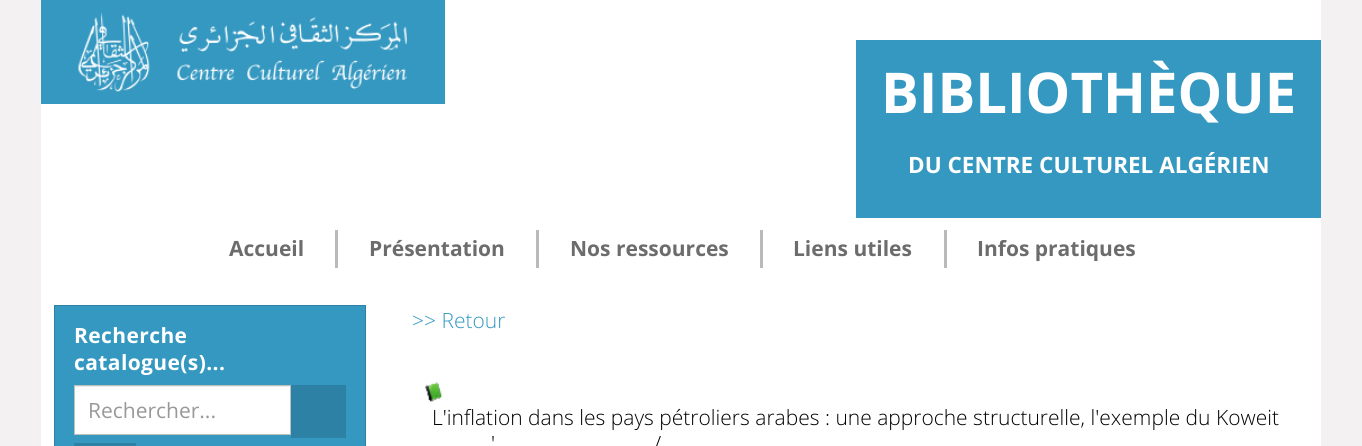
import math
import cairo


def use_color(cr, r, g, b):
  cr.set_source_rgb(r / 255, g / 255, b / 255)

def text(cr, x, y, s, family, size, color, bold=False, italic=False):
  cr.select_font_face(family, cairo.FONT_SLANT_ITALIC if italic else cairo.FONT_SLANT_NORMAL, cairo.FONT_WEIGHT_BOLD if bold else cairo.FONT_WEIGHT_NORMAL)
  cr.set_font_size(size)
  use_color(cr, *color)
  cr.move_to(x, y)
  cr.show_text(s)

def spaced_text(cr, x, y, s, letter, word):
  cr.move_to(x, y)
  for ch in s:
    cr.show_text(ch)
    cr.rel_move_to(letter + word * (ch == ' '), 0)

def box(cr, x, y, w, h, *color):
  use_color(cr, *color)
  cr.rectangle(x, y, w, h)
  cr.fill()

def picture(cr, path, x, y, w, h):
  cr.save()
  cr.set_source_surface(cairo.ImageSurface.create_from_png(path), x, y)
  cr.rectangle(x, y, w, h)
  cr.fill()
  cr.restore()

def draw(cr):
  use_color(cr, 243, 241, 242)
  cr.paint()
  box(cr, 41, 0, 1280, 446, 255, 255, 255)
  box(cr, 41, 0, 404, 104, 53, 152, 193)
  picture(cr, "img_01.png", 78, 12, 329, 80)
  box(cr, 856, 40, 465, 178, 53, 152, 193)
  box(cr, 335, 230, 3, 38, 186, 186, 186)
  box(cr, 536, 230, 3, 38, 186, 186, 186)
  box(cr, 760, 230, 3, 38, 186, 186, 186)
  box(cr, 944, 230, 3, 38, 186, 186, 186)
  use_color(cr, 53, 152, 193)
  cr.rectangle(54.5, 305.5, 311, 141)
  cr.fill_preserve()
  use_color(cr, 45, 129, 164)
  cr.set_line_width(1)
  cr.stroke()
  box(cr, 75, 387, 215, 47, 255, 255, 255)
  box(cr, 75, 386, 215, 1, 236, 236, 236)
  cr.rectangle(74.5, 385.5, 216, 49)
  use_color(cr, 191, 191, 191)
  cr.stroke()
  box(cr, 291, 385, 55, 53, 45, 129, 164)
  box(cr, 74, 443, 62, 3, 45, 129, 164)
  picture(cr, "img_02.png", 424, 382, 18, 20)
  text(cr, 881, 113, "BIBLIOTHÈQUE", "Open Sans", 56.25, (255, 255, 255), bold=True)
  text(cr, 908, 173, "DU CENTRE CULTUREL ALGÉRIEN", "Open Sans", 22.5, (255, 255, 255), bold=True)
  text(cr, 229, 256, "Accueil", "Open Sans", 21, (108, 108, 108), bold=True)
  text(cr, 369, 256, "Présentation", "Open Sans", 21, (108, 108, 108), bold=True)
  text(cr, 570, 256, "Nos ressources", "Open Sans", 21, (108, 108, 108), bold=True)
  text(cr, 793, 256, "Liens utiles", "Open Sans", 21, (108, 108, 108), bold=True)
  text(cr, 977, 256, "Infos pratiques", "Open Sans", 21, (108, 108, 108), bold=True)
  use_color(cr, 255, 255, 255)
  spaced_text(cr, 74, 343, "Recherche", 0.4, 0)
  spaced_text(cr, 74, 370, "catalogue(s)...", 0.4, 0)
  text(cr, 88, 418, "Rechercher...", "Open Sans", 21, (153, 153, 153))
  text(cr, 412, 328, ">> Retour", "Open Sans Light", 21, (53, 152, 193))
  text(cr, 432, 425, "L'inflation dans les pays pétroliers arabes : une approche structurelle, l'exemple du Koweit", "Open Sans Light", 21, (0, 0, 0))
  text(cr, 491, 451, "'", "Open Sans Light", 21, (0, 0, 0))
  text(cr, 654, 451, "/", "Open Sans Light", 21, (0, 0, 0))


surface = cairo.ImageSurface(cairo.FORMAT_RGB24, 1362, 446)
cr = cairo.Context(surface)
options = cairo.FontOptions()
options.set_hint_metrics(cairo.HINT_METRICS_OFF)
options.set_hint_style(cairo.HINT_STYLE_NONE)
cr.set_font_options(options)
cr.set_miter_limit(4)
draw(cr)
surface.write_to_png("out.png")
